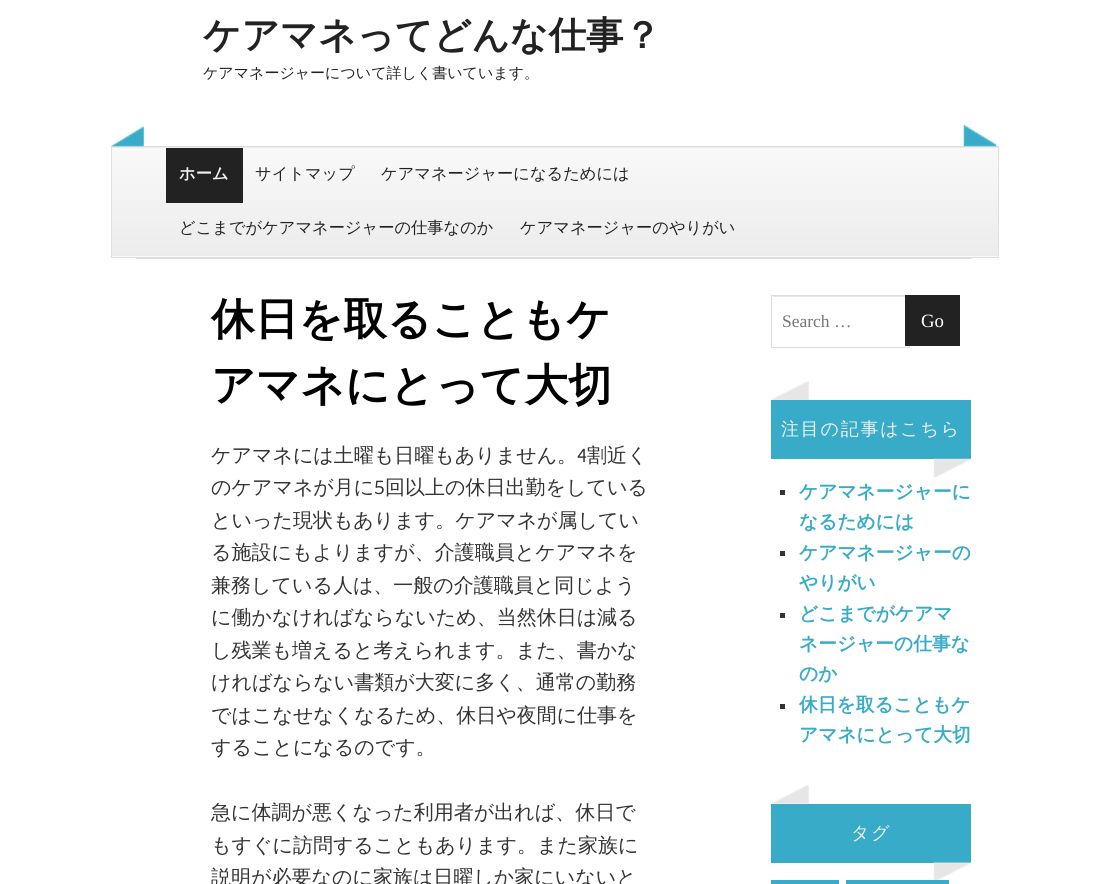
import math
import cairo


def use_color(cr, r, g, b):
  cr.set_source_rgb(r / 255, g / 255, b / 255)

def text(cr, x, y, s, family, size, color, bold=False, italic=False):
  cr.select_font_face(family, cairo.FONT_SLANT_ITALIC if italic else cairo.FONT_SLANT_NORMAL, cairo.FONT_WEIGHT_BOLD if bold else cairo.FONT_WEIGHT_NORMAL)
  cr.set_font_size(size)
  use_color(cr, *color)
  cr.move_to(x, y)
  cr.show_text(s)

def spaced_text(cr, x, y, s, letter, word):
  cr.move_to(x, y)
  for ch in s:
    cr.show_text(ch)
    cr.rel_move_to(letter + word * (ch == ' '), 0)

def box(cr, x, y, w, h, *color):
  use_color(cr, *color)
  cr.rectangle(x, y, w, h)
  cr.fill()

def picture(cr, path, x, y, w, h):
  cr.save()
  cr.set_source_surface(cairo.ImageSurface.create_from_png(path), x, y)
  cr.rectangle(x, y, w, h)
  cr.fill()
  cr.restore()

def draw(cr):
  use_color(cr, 255, 255, 255)
  cr.paint()
  gradient = cairo.LinearGradient(555, 148, 555, 39)
  gradient.add_color_stop_rgba(0, 0.925, 0.925, 0.925, 1)
  gradient.add_color_stop_rgba(1, 0.976, 0.976, 0.976, 1)
  cr.set_source(gradient)
  cr.rectangle(111, 147, 888, 1)
  cr.fill()
  gradient = cairo.LinearGradient(555, 256, 555, 148)
  gradient.add_color_stop_rgba(0, 0.925, 0.925, 0.925, 1)
  gradient.add_color_stop_rgba(1, 0.976, 0.976, 0.976, 1)
  cr.set_source(gradient)
  cr.rectangle(112, 148, 886, 108)
  cr.fill()
  gradient = cairo.LinearGradient(555, 365, 555, 256)
  gradient.add_color_stop_rgba(0, 0.925, 0.925, 0.925, 1)
  gradient.add_color_stop_rgba(1, 0.976, 0.976, 0.976, 1)
  cr.set_source(gradient)
  cr.rectangle(111, 256, 888, 1)
  cr.fill()
  cr.rectangle(111.5, 146.5, 887, 111)
  use_color(cr, 223, 223, 223)
  cr.set_line_width(1)
  cr.stroke()
  picture(cr, "img_01.png", 111, 126, 33, 21)
  picture(cr, "img_02.png", 963, 125, 34, 22)
  box(cr, 166, 148, 77, 55, 34, 34, 34)
  box(cr, 136, 258, 835, 1, 221, 221, 221)
  box(cr, 773, 296, 136, 1, 230, 230, 230)
  cr.rectangle(771.5, 295.5, 138, 52)
  use_color(cr, 221, 221, 221)
  cr.stroke()
  box(cr, 905, 295, 55, 51, 34, 34, 34)
  picture(cr, "img_03.png", 771, 381, 38, 19)
  box(cr, 771, 400, 200, 59, 55, 171, 200)
  picture(cr, "img_04.png", 933, 458, 38, 20)
  box(cr, 780, 490, 5, 5, 51, 51, 51)
  box(cr, 780, 551, 5, 5, 51, 51, 51)
  box(cr, 780, 613, 5, 5, 51, 51, 51)
  box(cr, 780, 704, 5, 5, 51, 51, 51)
  picture(cr, "img_05.png", 771, 785, 38, 19)
  box(cr, 771, 804, 200, 59, 55, 171, 200)
  picture(cr, "img_06.png", 933, 862, 38, 18)
  box(cr, 771, 880, 68, 4, 55, 171, 200)
  box(cr, 846, 880, 103, 4, 55, 171, 200)
  text(cr, 203, 48, "ケアマネってどんな仕事？", "WenQuanYi Zen Hei", 37.5, (34, 34, 34), bold=True)
  text(cr, 203, 78, "ケアマネージャーについて詳しく書いています。", "WenQuanYi Zen Hei Medium", 15, (34, 34, 34))
  text(cr, 179, 179, "ホーム", "WenQuanYi Zen Hei", 16.25, (242, 242, 242), bold=True)
  text(cr, 255, 179, "サイトマップ", "WenQuanYi Zen Hei Medium", 16.25, (34, 34, 34))
  text(cr, 381, 179, "ケアマネージャーになるためには", "WenQuanYi Zen Hei Medium", 16.25, (34, 34, 34))
  text(cr, 179, 233, "どこまでがケアマネージャーの仕事なのか", "WenQuanYi Zen Hei Medium", 16.25, (34, 34, 34))
  text(cr, 520, 233, "ケアマネージャーのやりがい", "WenQuanYi Zen Hei Medium", 16.25, (34, 34, 34))
  text(cr, 211, 334, "休日を取ることもケ", "WenQuanYi Zen Hei", 43.75, (0, 0, 0), bold=True)
  text(cr, 211, 400, "アマネにとって大切", "WenQuanYi Zen Hei", 43.75, (0, 0, 0), bold=True)
  text(cr, 211, 462, "ケアマネには土曜も日曜もありません。", "WenQuanYi Zen Hei Medium", 20, (51, 51, 51))
  text(cr, 577, 462, "4", "Quattrocento Sans", 20, (51, 51, 51))
  text(cr, 587, 462, "割近く", "WenQuanYi Zen Hei Medium", 20, (51, 51, 51))
  text(cr, 211, 494, "のケアマネが月に", "WenQuanYi Zen Hei Medium", 20, (51, 51, 51))
  text(cr, 374, 494, "5", "Quattrocento Sans", 20, (51, 51, 51))
  text(cr, 385, 494, "回以上の休日出勤をしている", "WenQuanYi Zen Hei Medium", 20, (51, 51, 51))
  text(cr, 211, 527, "といった現状もあります。ケアマネが属してい", "WenQuanYi Zen Hei Medium", 20, (51, 51, 51))
  text(cr, 211, 559, "る施設にもよりますが、介護職員とケアマネを", "WenQuanYi Zen Hei Medium", 20, (51, 51, 51))
  text(cr, 211, 592, "兼務している人は、一般の介護職員と同じよう", "WenQuanYi Zen Hei Medium", 20, (51, 51, 51))
  text(cr, 211, 624, "に働かなければならないため、当然休日は減る", "WenQuanYi Zen Hei Medium", 20, (51, 51, 51))
  text(cr, 211, 657, "し残業も増えると考えられます。また、書かな", "WenQuanYi Zen Hei Medium", 20, (51, 51, 51))
  text(cr, 211, 689, "ければならない書類が大変に多く、通常の勤務", "WenQuanYi Zen Hei Medium", 20, (51, 51, 51))
  text(cr, 211, 722, "ではこなせなくなるため、休日や夜間に仕事を", "WenQuanYi Zen Hei Medium", 20, (51, 51, 51))
  text(cr, 211, 754, "することになるのです。", "WenQuanYi Zen Hei Medium", 20, (51, 51, 51))
  text(cr, 211, 819, "急に体調が悪くなった利用者が出れば、休日で", "WenQuanYi Zen Hei Medium", 20, (51, 51, 51))
  text(cr, 211, 852, "もすぐに訪問することもあります。また家族に", "WenQuanYi Zen Hei Medium", 20, (51, 51, 51))
  text(cr, 211, 884, "説明が必要なのに家族は日曜しか家にいないと", "WenQuanYi Zen Hei Medium", 20, (51, 51, 51))
  text(cr, 782, 327, "Search …", "Liberation Serif", 17.5, (117, 117, 117))
  text(cr, 921, 327, "Go", "Liberation Serif", 18.75, (255, 255, 255))
  cr.select_font_face("WenQuanYi Zen Hei Medium")
  cr.set_font_size(18)
  use_color(cr, 242, 242, 242)
  spaced_text(cr, 781, 435, "注目の記事はこちら", 1.75, 0)
  text(cr, 799, 498, "ケアマネージャーに", "WenQuanYi Zen Hei", 18.75, (55, 171, 200), bold=True)
  text(cr, 799, 528, "なるためには", "WenQuanYi Zen Hei", 18.75, (55, 171, 200), bold=True)
  text(cr, 799, 559, "ケアマネージャーの", "WenQuanYi Zen Hei", 18.75, (55, 171, 200), bold=True)
  text(cr, 799, 589, "やりがい", "WenQuanYi Zen Hei", 18.75, (55, 171, 200), bold=True)
  text(cr, 799, 620, "どこまでがケアマ", "WenQuanYi Zen Hei", 18.75, (55, 171, 200), bold=True)
  text(cr, 799, 650, "ネージャーの仕事な", "WenQuanYi Zen Hei", 18.75, (55, 171, 200), bold=True)
  text(cr, 799, 680, "のか", "WenQuanYi Zen Hei", 18.75, (55, 171, 200), bold=True)
  text(cr, 799, 711, "休日を取ることもケ", "WenQuanYi Zen Hei", 18.75, (55, 171, 200), bold=True)
  text(cr, 799, 741, "アマネにとって大切", "WenQuanYi Zen Hei", 18.75, (55, 171, 200), bold=True)
  cr.select_font_face("WenQuanYi Zen Hei Medium")
  cr.set_font_size(18)
  use_color(cr, 242, 242, 242)
  spaced_text(cr, 851, 839, "タグ", 1.75, 0)


surface = cairo.ImageSurface(cairo.FORMAT_RGB24, 1107, 884)
cr = cairo.Context(surface)
options = cairo.FontOptions()
options.set_hint_metrics(cairo.HINT_METRICS_OFF)
options.set_hint_style(cairo.HINT_STYLE_NONE)
cr.set_font_options(options)
cr.set_miter_limit(4)
draw(cr)
surface.write_to_png("out.png")
